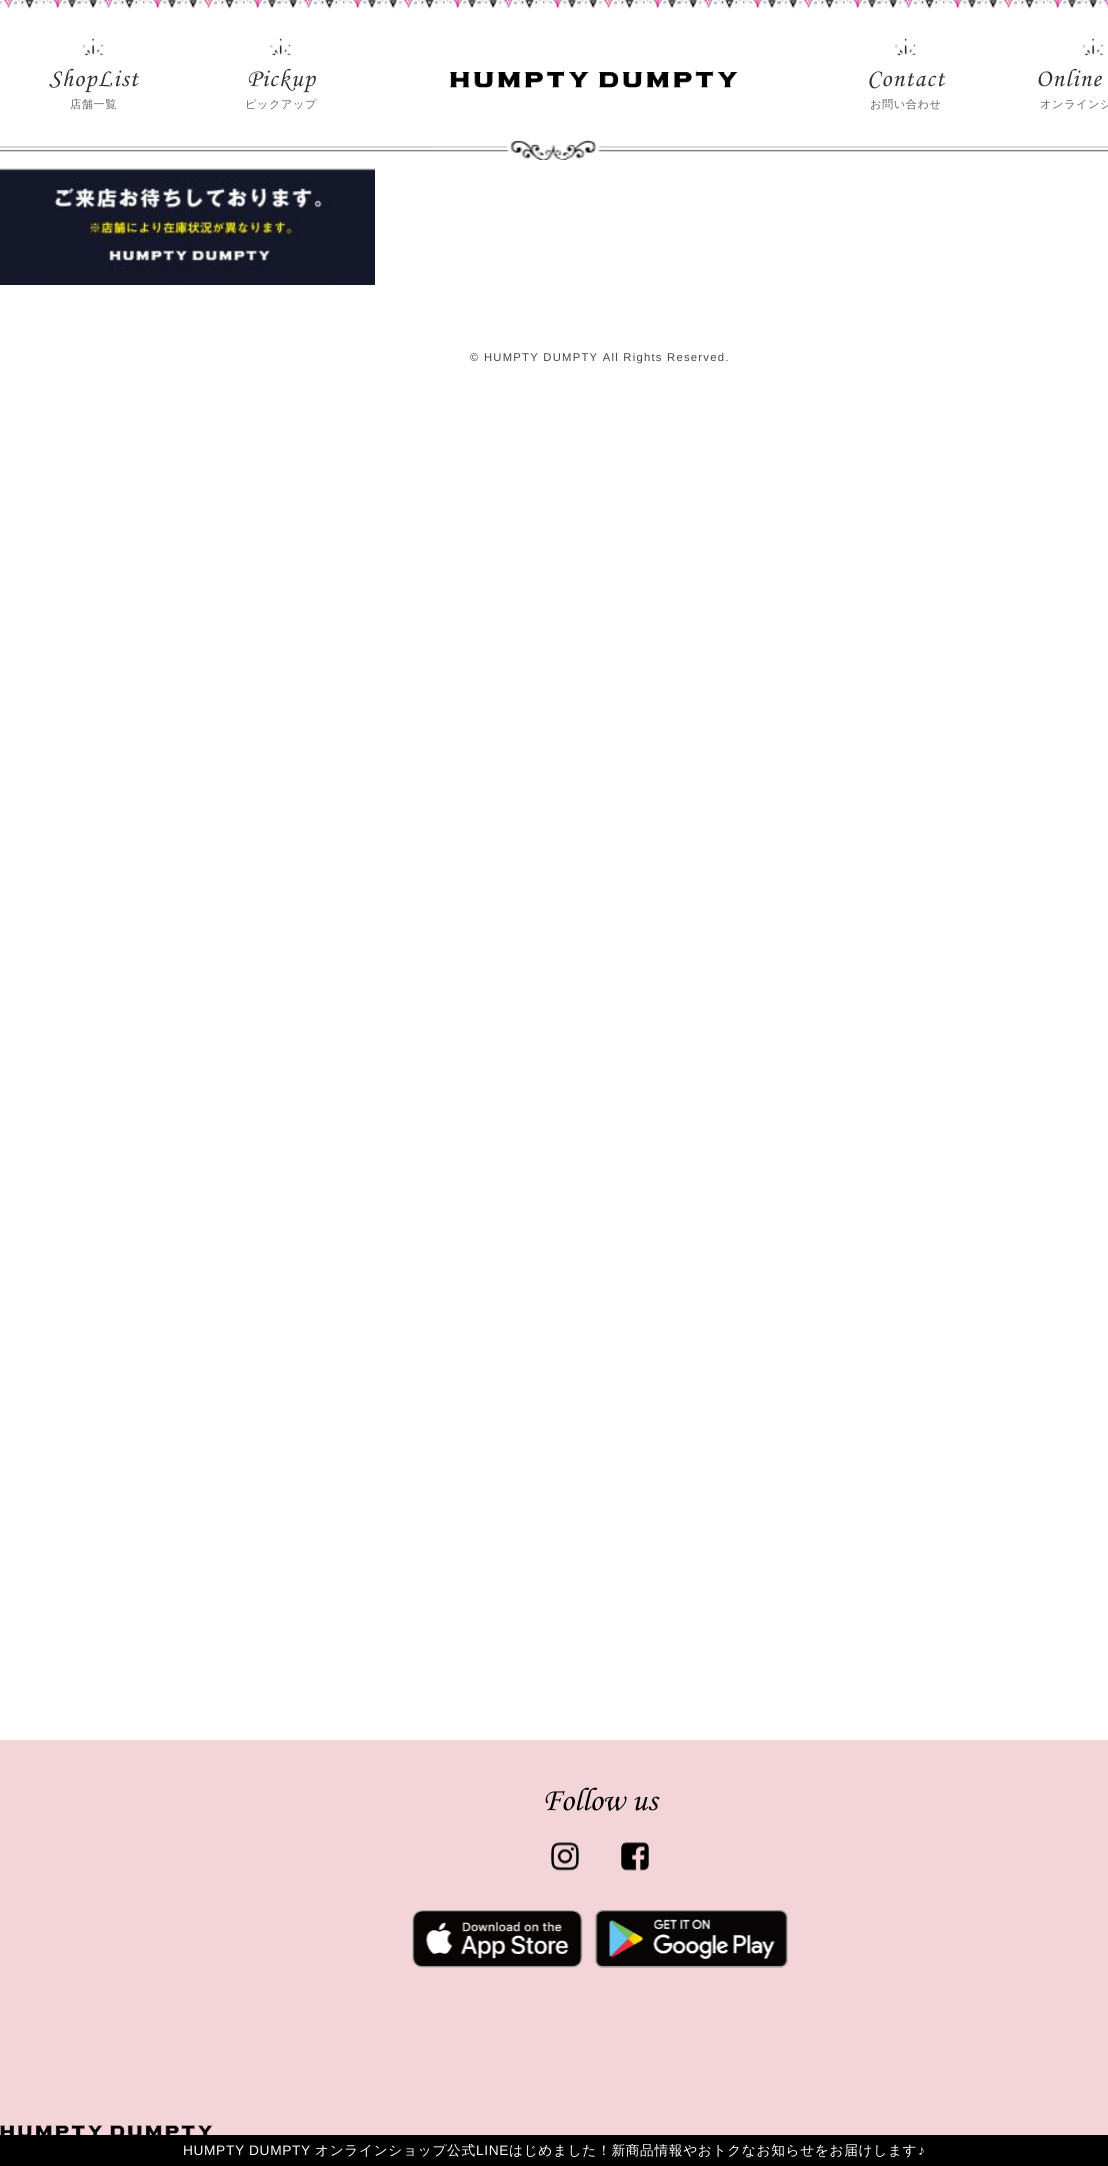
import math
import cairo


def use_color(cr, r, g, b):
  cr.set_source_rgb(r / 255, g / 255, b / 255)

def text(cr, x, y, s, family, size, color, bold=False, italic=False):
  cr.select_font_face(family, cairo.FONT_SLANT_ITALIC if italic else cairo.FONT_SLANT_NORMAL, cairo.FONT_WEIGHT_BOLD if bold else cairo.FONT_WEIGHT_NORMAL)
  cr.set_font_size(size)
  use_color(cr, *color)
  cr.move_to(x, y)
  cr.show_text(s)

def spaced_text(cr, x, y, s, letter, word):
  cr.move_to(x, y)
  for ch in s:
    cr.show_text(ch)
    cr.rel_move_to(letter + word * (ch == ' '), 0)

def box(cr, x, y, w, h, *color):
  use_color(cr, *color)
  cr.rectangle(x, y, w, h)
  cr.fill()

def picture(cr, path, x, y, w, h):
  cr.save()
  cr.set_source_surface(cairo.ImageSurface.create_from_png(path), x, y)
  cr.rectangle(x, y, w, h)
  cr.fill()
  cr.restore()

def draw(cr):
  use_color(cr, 255, 255, 255)
  cr.paint()
  picture(cr, "img_01.png", 0, 0, 1108, 9)
  picture(cr, "img_02.png", 82, 38, 22, 18)
  picture(cr, "img_03.png", 269, 38, 23, 18)
  picture(cr, "img_04.png", 450, 71, 288, 17)
  picture(cr, "img_05.png", 894, 38, 23, 18)
  picture(cr, "img_02.png", 1082, 38, 22, 18)
  picture(cr, "img_06.png", 0, 140, 1108, 20)
  picture(cr, "img_07.png", 0, 168, 375, 117)
  box(cr, 0, 1740, 1108, 395, 243, 212, 216)
  picture(cr, "img_08.png", 551, 1842, 28, 29)
  picture(cr, "img_09.png", 621, 1842, 28, 29)
  picture(cr, "img_10.png", 412, 1910, 171, 58)
  picture(cr, "img_11.png", 594, 1910, 194, 58)
  picture(cr, "img_12.png", 0, 2125, 213, 10)
  box(cr, 0, 2135, 1108, 31, 0, 0, 0)
  cr.select_font_face("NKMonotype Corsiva", cairo.FONT_SLANT_ITALIC)
  cr.set_font_size(25)
  use_color(cr, 51, 51, 51)
  spaced_text(cr, 49, 86, "ShopList", 1.25, 0)
  cr.select_font_face("WenQuanYi Zen Hei Medium")
  cr.set_font_size(11.25)
  use_color(cr, 102, 102, 102)
  spaced_text(cr, 70, 108, "店舗一覧", 0.5, 0)
  cr.select_font_face("NKMonotype Corsiva", cairo.FONT_SLANT_ITALIC)
  cr.set_font_size(25)
  use_color(cr, 51, 51, 51)
  spaced_text(cr, 247, 86, "Pickup", 1.25, 0)
  cr.select_font_face("WenQuanYi Zen Hei Medium")
  cr.set_font_size(11.25)
  use_color(cr, 102, 102, 102)
  spaced_text(cr, 245, 108, "ピックアップ", 0.5, 0)
  cr.select_font_face("NKMonotype Corsiva", cairo.FONT_SLANT_ITALIC)
  cr.set_font_size(25)
  use_color(cr, 51, 51, 51)
  spaced_text(cr, 867, 86, "Contact", 1.25, 0)
  cr.select_font_face("WenQuanYi Zen Hei Medium")
  cr.set_font_size(11.25)
  use_color(cr, 102, 102, 102)
  spaced_text(cr, 870, 108, "お問い合わせ", 0.5, 0)
  cr.select_font_face("NKMonotype Corsiva", cairo.FONT_SLANT_ITALIC)
  cr.set_font_size(25)
  use_color(cr, 51, 51, 51)
  spaced_text(cr, 1036, 86, "Online", 1.25, 0)
  cr.select_font_face("WenQuanYi Zen Hei Medium")
  cr.set_font_size(11.25)
  use_color(cr, 102, 102, 102)
  spaced_text(cr, 1040, 108, "オンラインシ", 0.5, 0)
  cr.select_font_face("Liberation Sans")
  use_color(cr, 68, 68, 68)
  spaced_text(cr, 470, 361, "© HUMPTY DUMPTY All Rights Reserved.", 1.25, 0)
  text(cr, 542, 1810, "Follow us", "NKMonotype Corsiva", 32.5, (0, 0, 0), italic=True)
  cr.select_font_face("Liberation Sans")
  cr.set_font_size(13.75)
  use_color(cr, 255, 255, 255)
  spaced_text(cr, 183, 2155, "HUMPTY DUMPTY", 0.6, 0)
  cr.save()
  cr.rectangle(0, 2144, 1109, 14)
  cr.clip()
  cr.select_font_face("WenQuanYi Zen Hei Medium")
  spaced_text(cr, 315, 2155, "オンラインショップ公式", 0.6, 0)
  cr.restore()
  spaced_text(cr, 476, 2155, "LINE", 0.6, 0)
  cr.save()
  cr.rectangle(0, 2144, 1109, 14)
  cr.clip()
  cr.select_font_face("WenQuanYi Zen Hei Medium")
  spaced_text(cr, 509, 2155, "はじめました！新商品情報やおトクなお知らせをお届けします", 0.6, 0)
  cr.restore()
  spaced_text(cr, 918, 2155, "♪", 0.6, 0)


surface = cairo.ImageSurface(cairo.FORMAT_RGB24, 1108, 2166)
cr = cairo.Context(surface)
options = cairo.FontOptions()
options.set_hint_metrics(cairo.HINT_METRICS_OFF)
options.set_hint_style(cairo.HINT_STYLE_NONE)
cr.set_font_options(options)
cr.set_miter_limit(4)
draw(cr)
surface.write_to_png("out.png")
